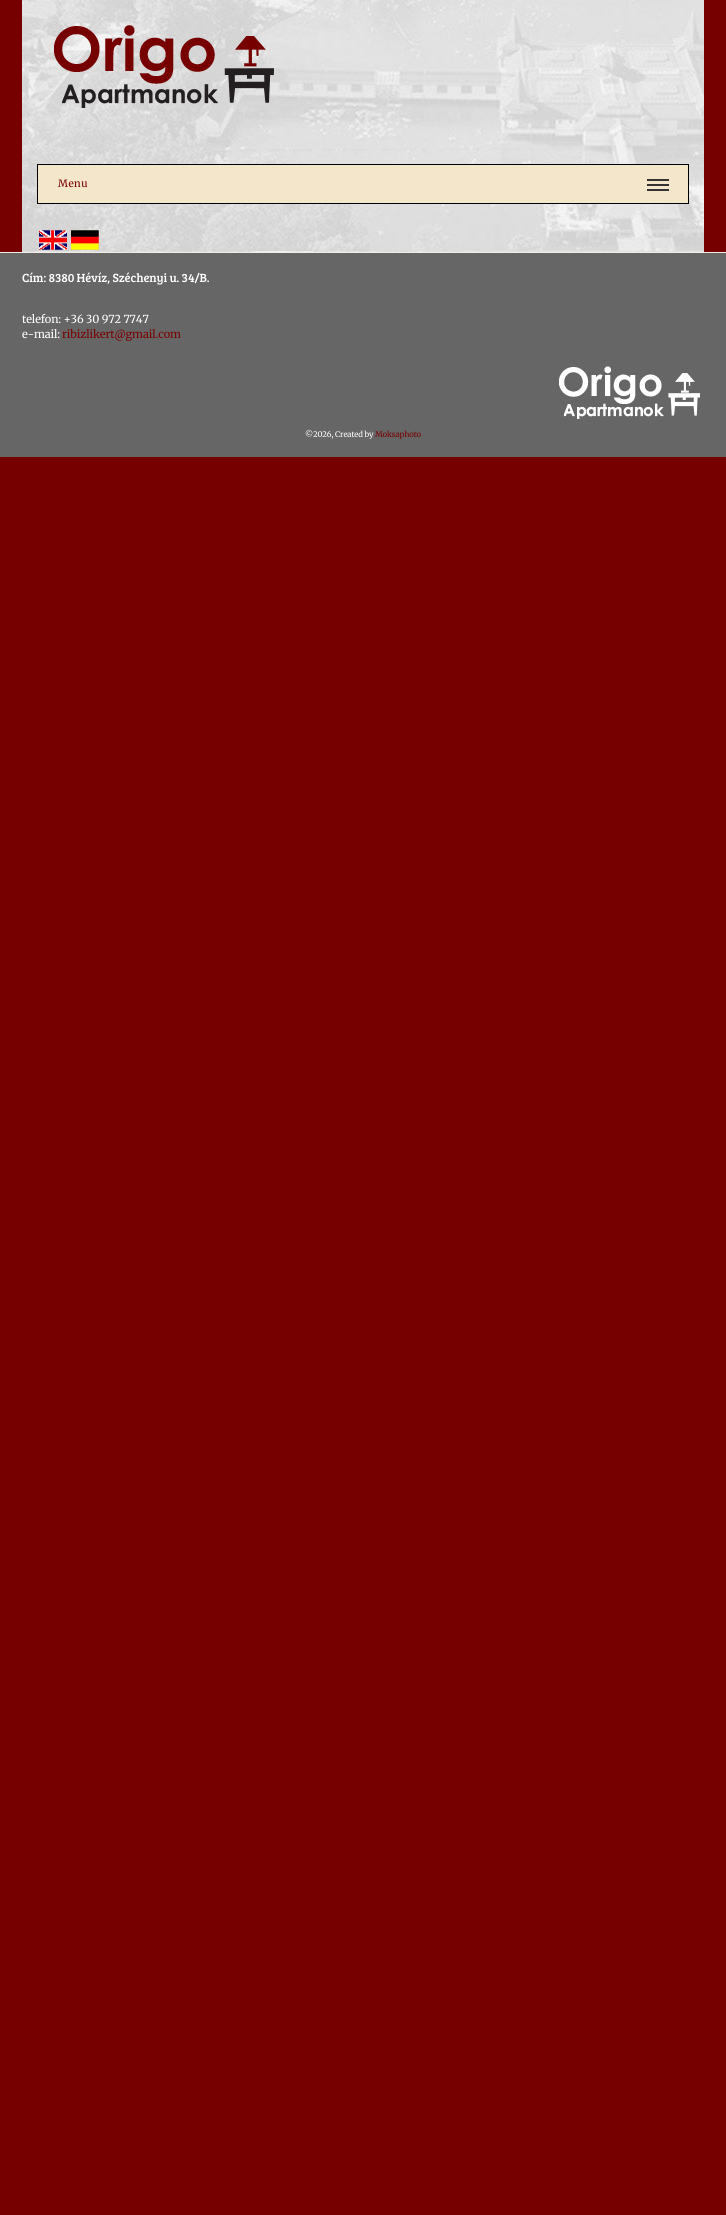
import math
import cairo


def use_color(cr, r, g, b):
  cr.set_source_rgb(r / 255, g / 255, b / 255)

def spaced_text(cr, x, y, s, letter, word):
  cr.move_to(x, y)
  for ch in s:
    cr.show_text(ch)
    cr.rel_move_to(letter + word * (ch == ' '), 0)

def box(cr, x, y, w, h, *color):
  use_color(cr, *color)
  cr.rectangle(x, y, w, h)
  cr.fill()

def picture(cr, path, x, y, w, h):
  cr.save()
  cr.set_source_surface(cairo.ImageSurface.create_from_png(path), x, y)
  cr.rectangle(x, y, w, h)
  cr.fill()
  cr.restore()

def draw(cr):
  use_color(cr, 118, 0, 0)
  cr.paint()
  picture(cr, "img_01.png", 22, 0, 682, 252)
  picture(cr, "img_02.png", 54, 25, 220, 83)
  use_color(cr, 244, 230, 203)
  cr.rectangle(37.5, 164.5, 651, 39)
  cr.fill_preserve()
  use_color(cr, 0, 0, 0)
  cr.set_line_width(1)
  cr.stroke()
  box(cr, 647, 179, 22, 2, 51, 51, 51)
  box(cr, 647, 184, 22, 2, 51, 51, 51)
  box(cr, 647, 189, 22, 2, 51, 51, 51)
  picture(cr, "img_03.png", 39, 230, 28, 20)
  picture(cr, "img_04.png", 71, 230, 28, 20)
  box(cr, 0, 252, 726, 1, 241, 238, 232)
  box(cr, 0, 253, 726, 204, 102, 102, 102)
  picture(cr, "img_05.png", 559, 366, 141, 53)
  cr.select_font_face("Merriweather Light")
  cr.set_font_size(10)
  use_color(cr, 120, 2, 2)
  spaced_text(cr, 58, 187, "Menu", 0.5, 0)
  cr.select_font_face("Bree Serif")
  cr.set_font_size(12.3)
  use_color(cr, 255, 255, 255)
  spaced_text(cr, 22, 282, "Cím: 8380 Hévíz, Széchenyi u. 34/B.", -0.1, 0)
  cr.select_font_face("Merriweather Light")
  cr.set_font_size(11)
  spaced_text(cr, 22, 323, "telefon: +36 30 972 7747", -0.1, 0)
  spaced_text(cr, 22, 338, "e-mail:", -0.1, 0)
  use_color(cr, 120, 2, 2)
  spaced_text(cr, 62, 338, "ribizlikert@gmail.com", -0.1, 0)
  cr.set_font_size(7.75)
  use_color(cr, 255, 255, 255)
  spaced_text(cr, 305, 437, "©2026, Created by", -0.1, 0)
  use_color(cr, 120, 2, 2)
  spaced_text(cr, 375, 437, "Moksaphoto", -0.1, 0)


surface = cairo.ImageSurface(cairo.FORMAT_RGB24, 726, 2215)
cr = cairo.Context(surface)
options = cairo.FontOptions()
options.set_hint_metrics(cairo.HINT_METRICS_OFF)
options.set_hint_style(cairo.HINT_STYLE_NONE)
cr.set_font_options(options)
cr.set_miter_limit(4)
draw(cr)
surface.write_to_png("out.png")
